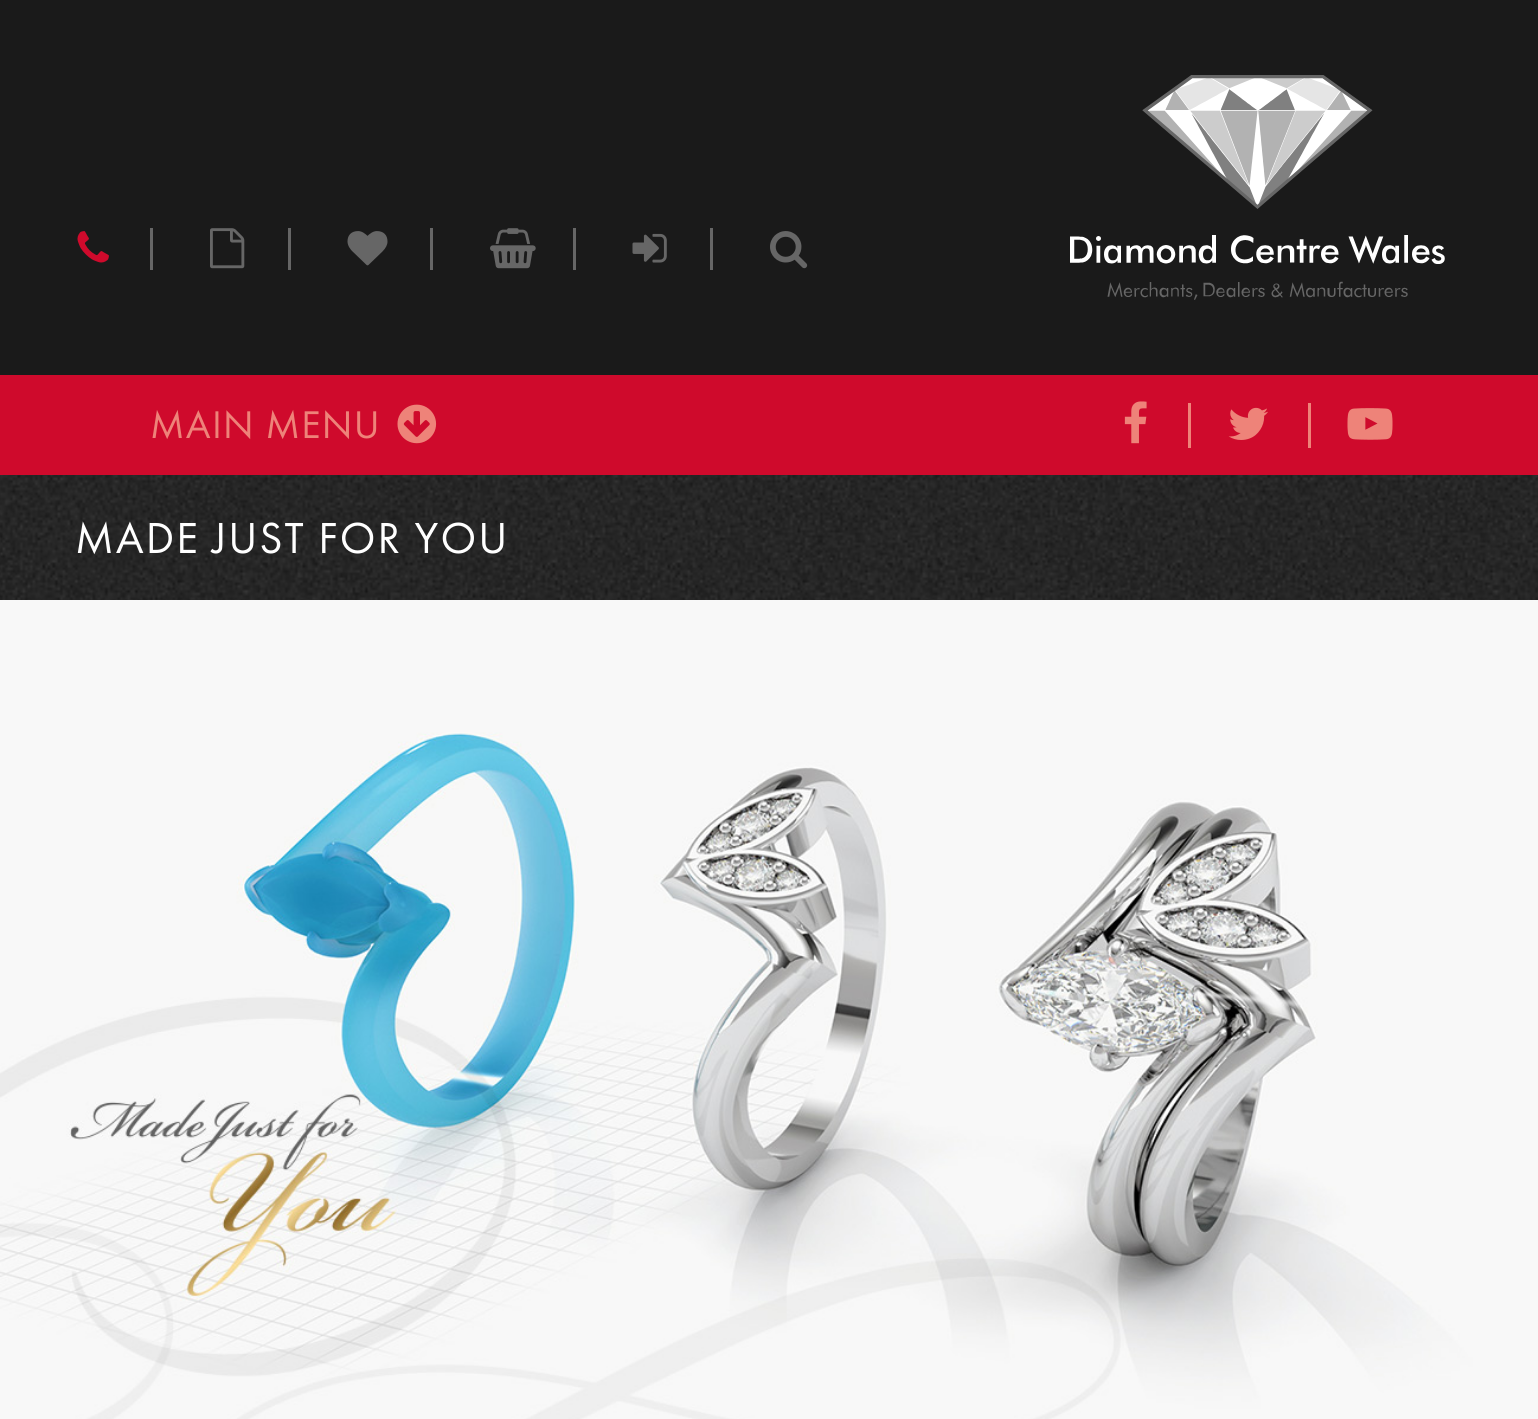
import math
import cairo


def use_color(cr, r, g, b):
  cr.set_source_rgb(r / 255, g / 255, b / 255)

def spaced_text(cr, x, y, s, letter, word):
  cr.move_to(x, y)
  for ch in s:
    cr.show_text(ch)
    cr.rel_move_to(letter + word * (ch == ' '), 0)

def box(cr, x, y, w, h, *color):
  use_color(cr, *color)
  cr.rectangle(x, y, w, h)
  cr.fill()

def picture(cr, path, x, y, w, h):
  cr.save()
  cr.set_source_surface(cairo.ImageSurface.create_from_png(path), x, y)
  cr.rectangle(x, y, w, h)
  cr.fill()
  cr.restore()

def draw(cr):
  use_color(cr, 255, 255, 255)
  cr.paint()
  picture(cr, "img_01.png", 0, 475, 1538, 125)
  box(cr, 0, 0, 1538, 375, 26, 26, 26)
  picture(cr, "img_02.png", 77, 231, 32, 32)
  box(cr, 150, 228, 3, 42, 102, 102, 102)
  picture(cr, "img_03.png", 210, 228, 35, 41)
  box(cr, 288, 228, 3, 42, 102, 102, 102)
  picture(cr, "img_04.png", 347, 231, 41, 35)
  box(cr, 430, 228, 3, 42, 102, 102, 102)
  picture(cr, "img_05.png", 490, 228, 46, 41)
  box(cr, 573, 228, 3, 42, 102, 102, 102)
  picture(cr, "img_06.png", 632, 233, 35, 30)
  box(cr, 710, 228, 3, 42, 102, 102, 102)
  picture(cr, "img_07.png", 770, 231, 38, 38)
  picture(cr, "img_08.png", 1070, 75, 375, 225)
  box(cr, 0, 375, 1538, 100, 207, 10, 44)
  picture(cr, "img_09.png", 397, 404, 40, 40)
  picture(cr, "img_10.png", 1124, 401, 23, 43)
  box(cr, 1188, 403, 3, 45, 238, 131, 121)
  picture(cr, "img_11.png", 1228, 407, 40, 33)
  box(cr, 1308, 403, 3, 45, 238, 131, 121)
  picture(cr, "img_12.png", 1347, 408, 46, 32)
  picture(cr, "img_13.png", 0, 600, 1538, 819)
  cr.select_font_face("Futura PT")
  cr.set_font_size(40)
  spaced_text(cr, 150, 438, "MAIN MENU", 1.25, 0)
  cr.set_font_size(45)
  use_color(cr, 255, 255, 255)
  spaced_text(cr, 75, 553, "MADE JUST FOR YOU", 2, 0)


surface = cairo.ImageSurface(cairo.FORMAT_RGB24, 1538, 1419)
cr = cairo.Context(surface)
options = cairo.FontOptions()
options.set_hint_metrics(cairo.HINT_METRICS_OFF)
options.set_hint_style(cairo.HINT_STYLE_NONE)
cr.set_font_options(options)
cr.set_miter_limit(4)
draw(cr)
surface.write_to_png("out.png")
